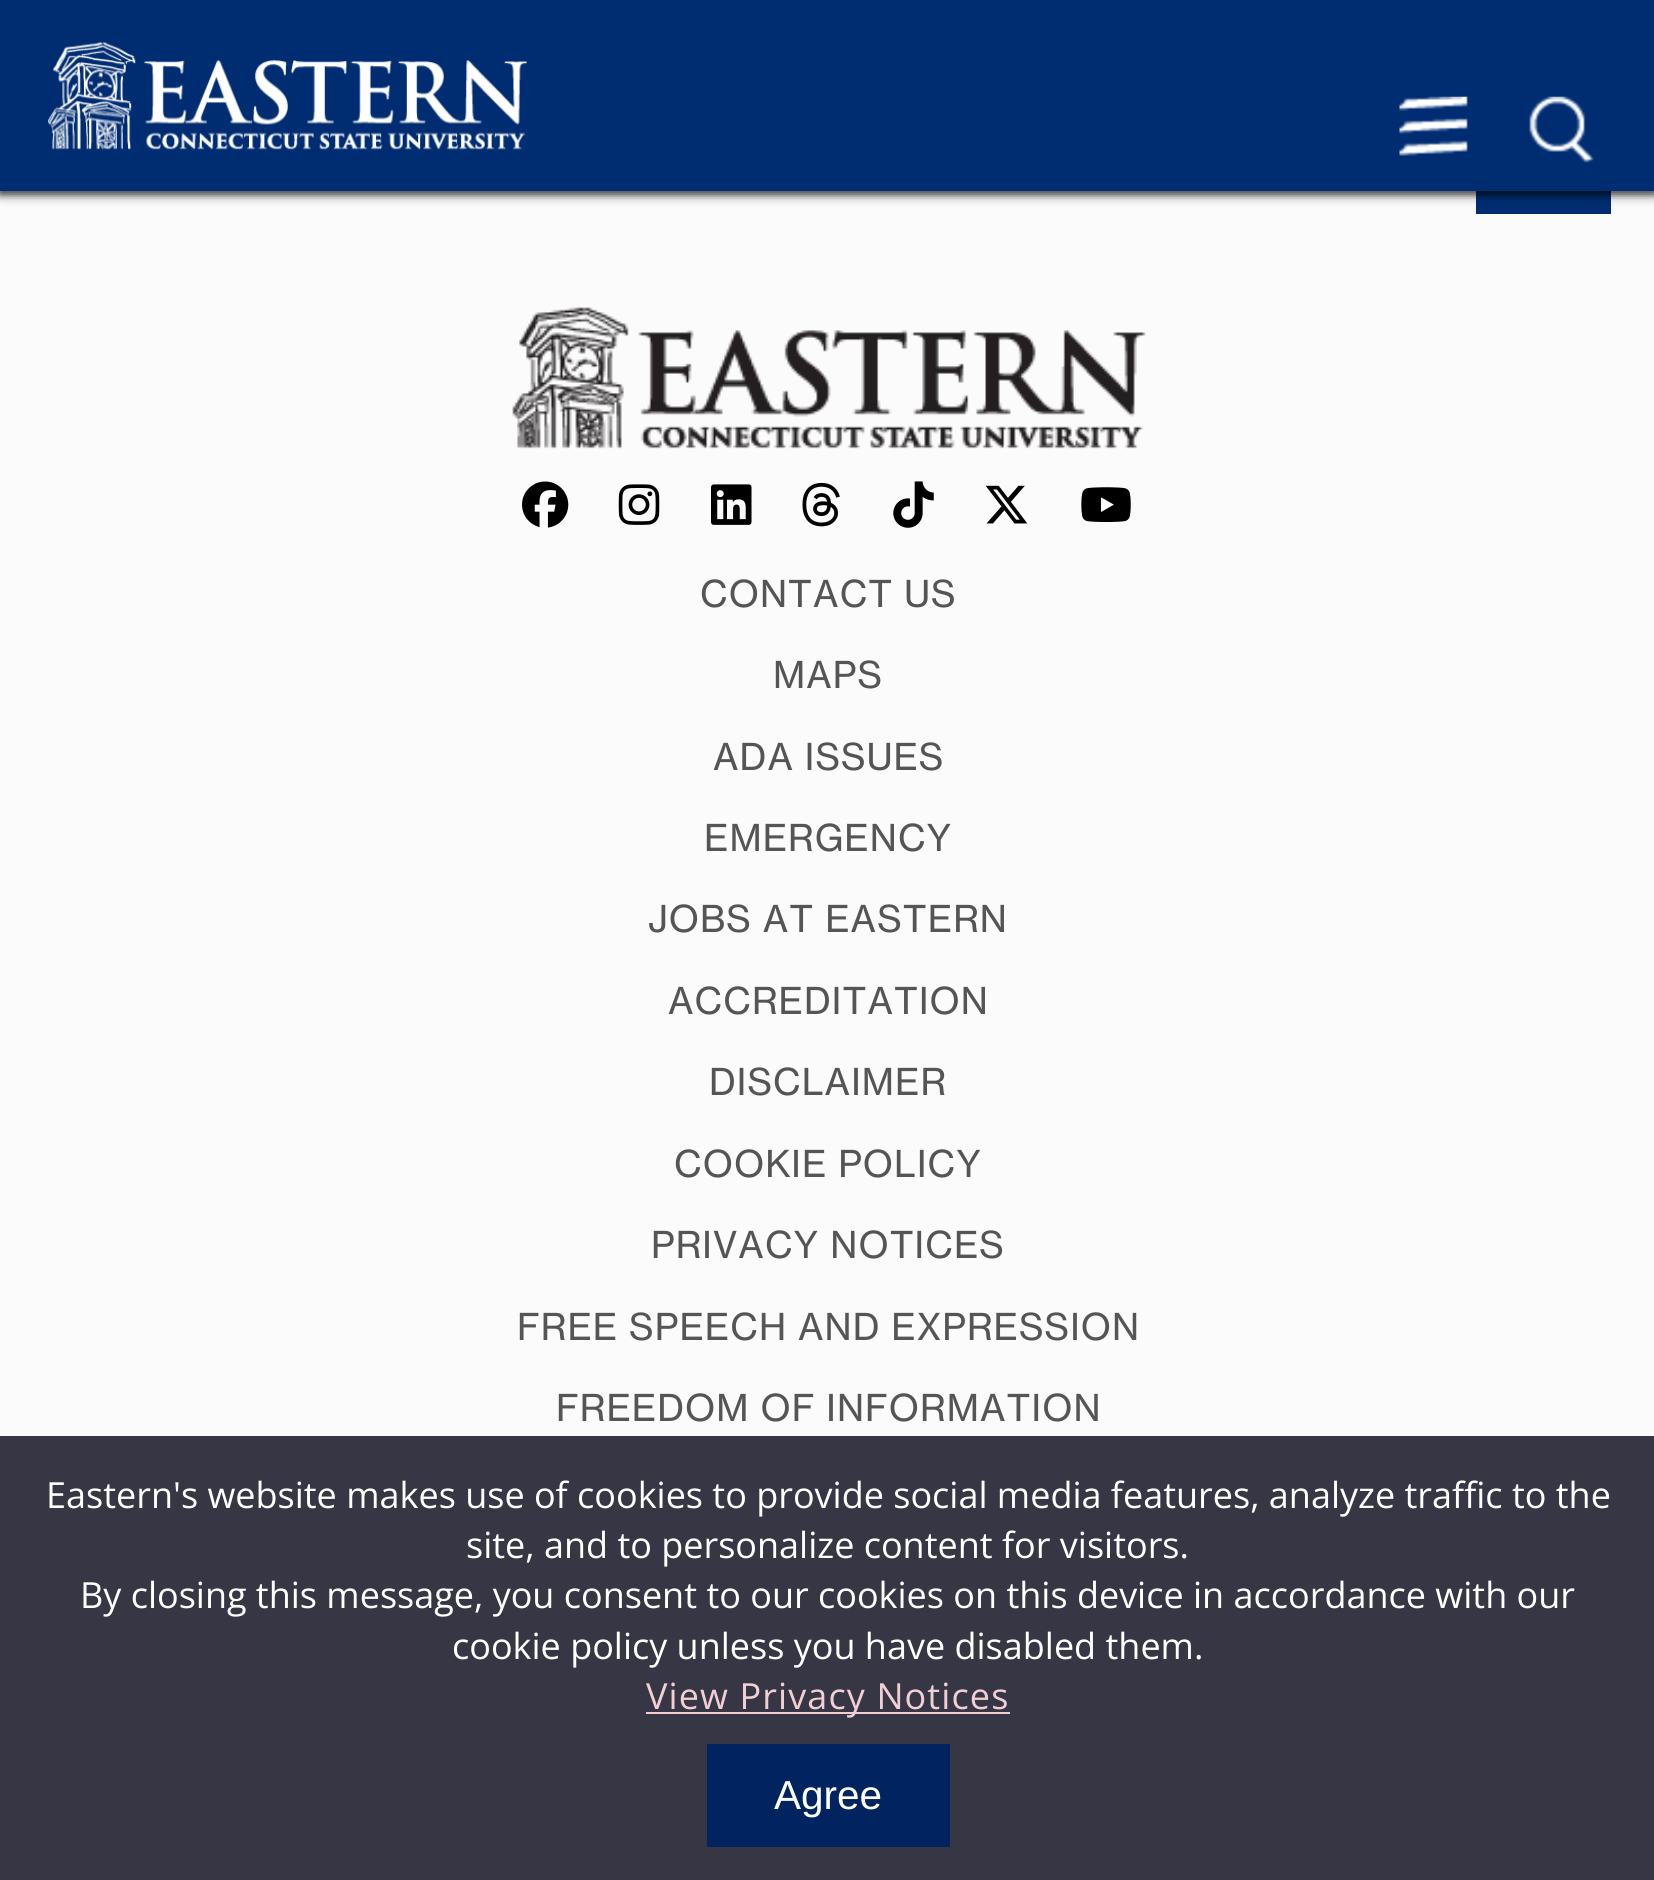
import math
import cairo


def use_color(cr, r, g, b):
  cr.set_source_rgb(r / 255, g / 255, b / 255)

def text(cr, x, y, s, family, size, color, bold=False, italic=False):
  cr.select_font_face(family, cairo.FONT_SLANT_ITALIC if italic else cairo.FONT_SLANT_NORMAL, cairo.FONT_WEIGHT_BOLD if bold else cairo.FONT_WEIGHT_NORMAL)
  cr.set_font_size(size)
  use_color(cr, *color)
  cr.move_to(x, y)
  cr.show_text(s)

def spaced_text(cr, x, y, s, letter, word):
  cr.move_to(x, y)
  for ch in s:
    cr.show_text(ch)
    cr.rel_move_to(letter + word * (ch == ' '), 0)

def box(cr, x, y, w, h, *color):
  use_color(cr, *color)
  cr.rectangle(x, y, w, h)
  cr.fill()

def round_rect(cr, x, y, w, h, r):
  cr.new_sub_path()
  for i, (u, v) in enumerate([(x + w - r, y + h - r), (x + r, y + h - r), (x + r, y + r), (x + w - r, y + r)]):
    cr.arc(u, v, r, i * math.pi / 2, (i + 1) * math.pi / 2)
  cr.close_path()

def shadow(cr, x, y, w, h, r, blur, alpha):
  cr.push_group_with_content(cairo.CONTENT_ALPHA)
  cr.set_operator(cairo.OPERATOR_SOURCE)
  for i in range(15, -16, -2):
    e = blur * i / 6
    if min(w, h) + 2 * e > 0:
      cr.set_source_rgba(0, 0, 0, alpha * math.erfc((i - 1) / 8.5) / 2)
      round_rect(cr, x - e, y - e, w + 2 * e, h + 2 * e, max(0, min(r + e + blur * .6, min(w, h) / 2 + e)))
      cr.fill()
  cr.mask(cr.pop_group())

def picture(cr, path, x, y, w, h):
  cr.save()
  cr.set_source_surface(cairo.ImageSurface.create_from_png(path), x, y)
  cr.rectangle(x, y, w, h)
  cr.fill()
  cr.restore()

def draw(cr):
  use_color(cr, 251, 251, 251)
  cr.paint()
  box(cr, 1476, 191, 135, 23, 0, 45, 114)
  use_color(cr, 0, 0, 0)
  shadow(cr, 0, 2, 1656, 192, 0, 5.5, 0.75)
  shadow(cr, -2, 5, 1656, 191, 0, 2, 0.2)
  box(cr, 0, 0, 1654, 191, 0, 45, 114)
  picture(cr, "img_01.png", 48, 42, 479, 108)
  picture(cr, "img_02.png", 1399, 96, 69, 60)
  picture(cr, "img_03.png", 1529, 96, 65, 67)
  box(cr, 0, 1436, 1654, 444, 54, 54, 69)
  picture(cr, "img_04.png", 512, 307, 634, 142)
  picture(cr, "img_05.png", 522, 481, 47, 47)
  picture(cr, "img_06.png", 618, 484, 42, 41)
  picture(cr, "img_07.png", 711, 484, 41, 41)
  picture(cr, "img_08.png", 802, 482, 38, 45)
  picture(cr, "img_09.png", 893, 481, 41, 47)
  picture(cr, "img_10.png", 985, 485, 43, 39)
  picture(cr, "img_11.png", 1081, 487, 50, 35)
  box(cr, 646, 1712, 364, 2, 242, 207, 210)
  box(cr, 707, 1744, 243, 103, 1, 36, 96)
  cr.select_font_face("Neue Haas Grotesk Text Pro")
  cr.set_font_size(36.5)
  use_color(cr, 85, 85, 85)
  spaced_text(cr, 700, 607, "CONTACT US", 1.1, 0)
  spaced_text(cr, 773, 688, "MAPS", 1.1, 0)
  spaced_text(cr, 713, 770, "ADA ISSUES", 1.1, 0)
  spaced_text(cr, 704, 851, "EMERGENCY", 1.1, 0)
  spaced_text(cr, 648, 932, "JOBS AT EASTERN", 1.1, 0)
  spaced_text(cr, 668, 1014, "ACCREDITATION", 1.1, 0)
  spaced_text(cr, 709, 1095, "DISCLAIMER", 1.1, 0)
  spaced_text(cr, 674, 1177, "COOKIE POLICY", 1.1, 0)
  spaced_text(cr, 651, 1258, "PRIVACY NOTICES", 1.1, 0)
  spaced_text(cr, 517, 1340, "FREE SPEECH AND EXPRESSION", 1.1, 0)
  spaced_text(cr, 556, 1421, "FREEDOM OF INFORMATION", 1.1, 0)
  text(cr, 46, 1508, "Eastern's website makes use of cookies to provide social media features, analyze traffic to the", "Open Sans", 36, (255, 255, 255))
  text(cr, 466, 1558, "site, and to personalize content for visitors.", "Open Sans", 36, (255, 255, 255))
  text(cr, 80, 1608, "By closing this message, you consent to our cookies on this device in accordance with our", "Open Sans", 36, (255, 255, 255))
  text(cr, 452, 1659, "cookie policy unless you have disabled them.", "Open Sans", 36, (255, 255, 255))
  use_color(cr, 242, 207, 210)
  spaced_text(cr, 646, 1709, "View Privacy Notices", 1.1, 0)
  text(cr, 774, 1809, "Agree", "Liberation Sans", 40.5, (255, 255, 255))


surface = cairo.ImageSurface(cairo.FORMAT_RGB24, 1654, 1880)
cr = cairo.Context(surface)
options = cairo.FontOptions()
options.set_hint_metrics(cairo.HINT_METRICS_OFF)
options.set_hint_style(cairo.HINT_STYLE_NONE)
cr.set_font_options(options)
cr.set_miter_limit(4)
draw(cr)
surface.write_to_png("out.png")
